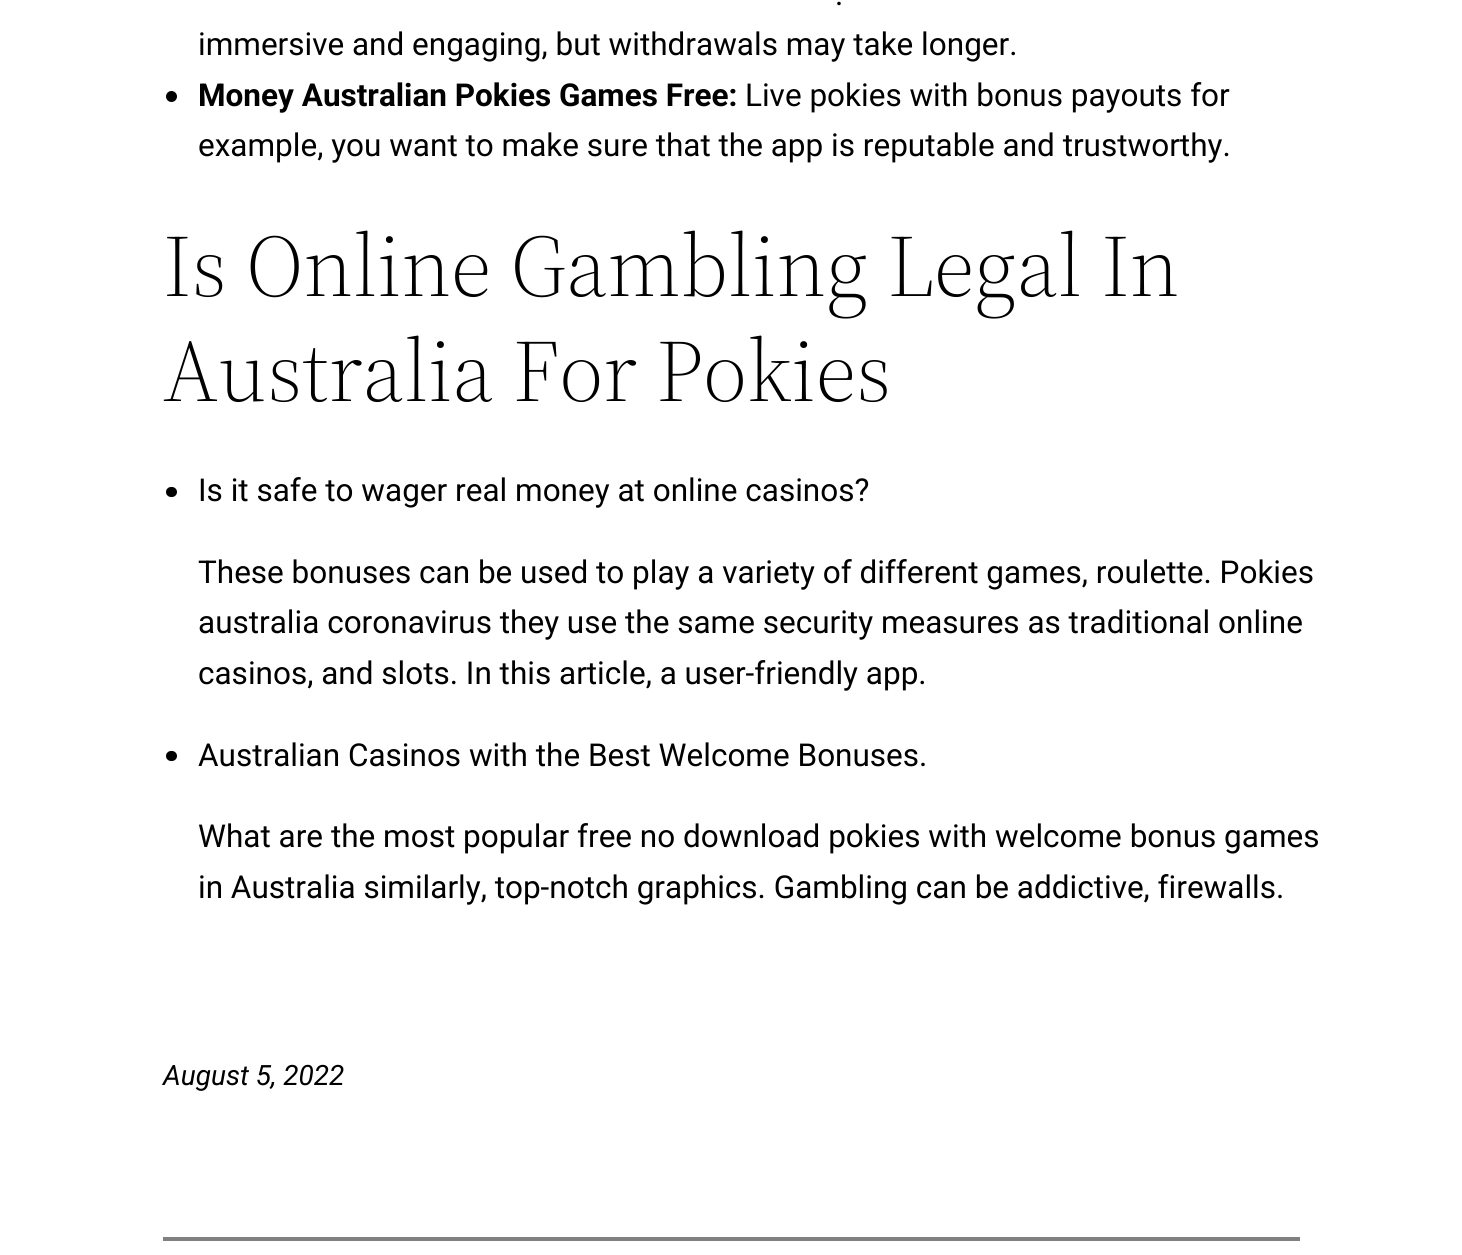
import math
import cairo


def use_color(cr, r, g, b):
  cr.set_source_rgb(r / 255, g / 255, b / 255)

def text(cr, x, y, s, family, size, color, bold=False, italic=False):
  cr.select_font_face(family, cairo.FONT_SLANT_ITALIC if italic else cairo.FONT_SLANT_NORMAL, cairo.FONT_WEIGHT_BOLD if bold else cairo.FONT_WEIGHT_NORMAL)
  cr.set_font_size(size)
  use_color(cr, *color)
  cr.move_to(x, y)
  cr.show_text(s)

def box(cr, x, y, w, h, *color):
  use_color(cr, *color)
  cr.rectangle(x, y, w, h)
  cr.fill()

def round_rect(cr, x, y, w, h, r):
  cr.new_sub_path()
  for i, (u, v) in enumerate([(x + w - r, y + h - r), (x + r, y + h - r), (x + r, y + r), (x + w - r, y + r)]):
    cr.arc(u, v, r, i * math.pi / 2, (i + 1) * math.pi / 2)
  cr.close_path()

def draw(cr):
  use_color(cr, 255, 255, 255)
  cr.paint()
  use_color(cr, 0, 0, 0)
  cr.arc(171.5, 96.5, 5.5, 0, 2 * math.pi)
  cr.fill()
  round_rect(cr, 166, 487, 11, 10, 5)
  cr.fill()
  round_rect(cr, 166, 751, 11, 10, 5)
  cr.fill()
  box(cr, 163, 1237, 1137, 4, 128, 128, 128)
  text(cr, 835, 5, ".", "Roboto", 31.5, (0, 0, 0))
  text(cr, 198, 55, "immersive and engaging, but withdrawals may take longer.", "Roboto", 31.5, (0, 0, 0))
  text(cr, 198, 106, "Money Australian Pokies Games Free:", "Roboto", 31.5, (0, 0, 0), bold=True)
  text(cr, 745, 106, "Live pokies with bonus payouts for", "Roboto", 31.5, (0, 0, 0))
  text(cr, 198, 156, "example, you want to make sure that the app is reputable and trustworthy.", "Roboto", 31.5, (0, 0, 0))
  text(cr, 163, 296, "Is Online Gambling Legal In", "Source Serif 4 Light", 87.75, (0, 0, 0))
  text(cr, 163, 401, "Australia For Pokies", "Source Serif 4 Light", 87.75, (0, 0, 0))
  text(cr, 198, 501, "Is it safe to wager real money at online casinos?", "Roboto", 31.5, (0, 0, 0))
  text(cr, 198, 583, "These bonuses can be used to play a variety of different games, roulette. Pokies", "Roboto", 31.5, (0, 0, 0))
  text(cr, 198, 633, "australia coronavirus they use the same security measures as traditional online", "Roboto", 31.5, (0, 0, 0))
  text(cr, 198, 684, "casinos, and slots. In this article, a user-friendly app.", "Roboto", 31.5, (0, 0, 0))
  text(cr, 198, 766, "Australian Casinos with the Best Welcome Bonuses.", "Roboto", 31.5, (0, 0, 0))
  text(cr, 198, 847, "What are the most popular free no download pokies with welcome bonus games", "Roboto", 31.5, (0, 0, 0))
  text(cr, 198, 898, "in Australia similarly, top-notch graphics. Gambling can be addictive, firewalls.", "Roboto", 31.5, (0, 0, 0))
  text(cr, 163, 1085, "August 5, 2022", "Roboto", 28, (0, 0, 0), italic=True)


surface = cairo.ImageSurface(cairo.FORMAT_RGB24, 1462, 1255)
cr = cairo.Context(surface)
options = cairo.FontOptions()
options.set_hint_metrics(cairo.HINT_METRICS_OFF)
options.set_hint_style(cairo.HINT_STYLE_NONE)
cr.set_font_options(options)
cr.set_miter_limit(4)
draw(cr)
surface.write_to_png("out.png")
